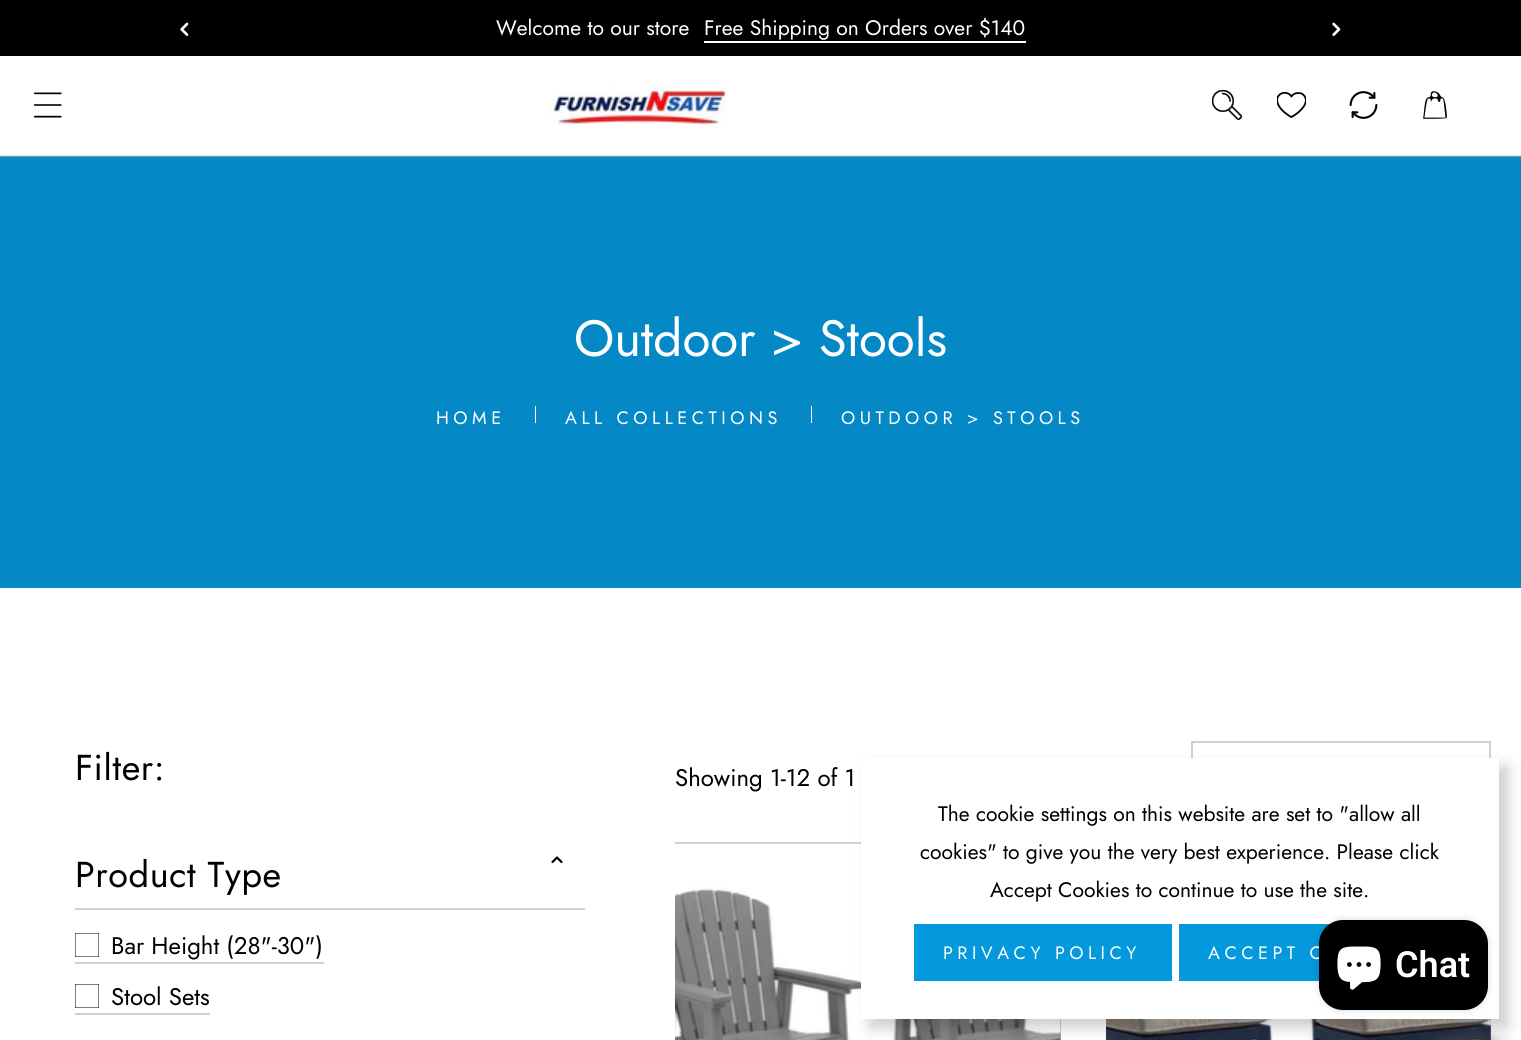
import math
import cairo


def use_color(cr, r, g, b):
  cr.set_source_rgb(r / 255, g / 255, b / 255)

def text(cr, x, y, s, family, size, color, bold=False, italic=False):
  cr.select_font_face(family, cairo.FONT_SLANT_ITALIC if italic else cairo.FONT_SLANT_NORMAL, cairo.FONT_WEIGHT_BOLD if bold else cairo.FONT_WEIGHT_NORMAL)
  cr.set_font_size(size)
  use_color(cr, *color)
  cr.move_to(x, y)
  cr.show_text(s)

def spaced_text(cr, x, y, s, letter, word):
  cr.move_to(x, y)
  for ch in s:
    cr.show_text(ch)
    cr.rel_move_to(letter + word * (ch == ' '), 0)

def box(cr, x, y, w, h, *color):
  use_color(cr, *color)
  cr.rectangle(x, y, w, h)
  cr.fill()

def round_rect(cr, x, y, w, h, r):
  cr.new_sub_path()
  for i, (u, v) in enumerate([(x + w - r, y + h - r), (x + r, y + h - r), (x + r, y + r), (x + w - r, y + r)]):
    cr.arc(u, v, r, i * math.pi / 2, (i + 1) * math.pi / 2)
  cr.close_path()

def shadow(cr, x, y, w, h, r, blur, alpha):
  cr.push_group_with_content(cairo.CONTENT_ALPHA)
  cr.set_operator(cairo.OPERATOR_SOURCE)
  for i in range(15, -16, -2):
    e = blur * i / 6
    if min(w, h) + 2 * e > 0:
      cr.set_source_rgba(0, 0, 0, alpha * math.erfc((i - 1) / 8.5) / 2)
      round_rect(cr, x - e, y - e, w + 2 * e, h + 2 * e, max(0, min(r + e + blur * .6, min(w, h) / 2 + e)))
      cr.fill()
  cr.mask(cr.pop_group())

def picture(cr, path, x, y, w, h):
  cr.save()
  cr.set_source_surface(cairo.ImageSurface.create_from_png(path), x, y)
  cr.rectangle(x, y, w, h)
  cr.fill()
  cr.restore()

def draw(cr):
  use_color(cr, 255, 255, 255)
  cr.paint()
  box(cr, 0, 155, 1521, 1, 232, 232, 232)
  box(cr, 0, 0, 1521, 56, 0, 0, 0)
  picture(cr, "img_01.png", 180, 22, 9, 14)
  box(cr, 704, 41, 322, 2, 255, 255, 255)
  picture(cr, "img_02.png", 1332, 22, 9, 14)
  picture(cr, "img_03.png", 33, 92, 29, 26)
  picture(cr, "img_04.png", 549, 85, 179, 40)
  picture(cr, "img_05.png", 1212, 90, 30, 30)
  cr.save()
  cr.rectangle(1277, 92, 29, 26)
  cr.clip()
  cr.new_path()
  cr.move_to(1298.5, 93)
  cr.curve_to(1295.5, 93, 1293, 94, 1291.5, 96.5)
  cr.curve_to(1285, 87, 1267.5, 97, 1284, 112)
  cr.curve_to(1285.5, 113, 1289.5, 116.5, 1291.5, 117)
  cr.line_to(1294, 115.5)
  cr.curve_to(1299.5, 112, 1309.5, 103.5, 1304.5, 96)
  cr.curve_to(1303, 94, 1301, 93, 1298.5, 93)
  cr.close_path()
  use_color(cr, 0, 0, 0)
  cr.set_line_width(1.8)
  cr.set_line_cap(cairo.LINE_CAP_ROUND)
  cr.set_line_join(cairo.LINE_JOIN_ROUND)
  cr.stroke()
  cr.restore()
  picture(cr, "img_06.png", 1349, 91, 29, 28)
  picture(cr, "img_07.png", 1423, 91, 24, 28)
  box(cr, 0, 157, 1521, 431, 4, 137, 198)
  box(cr, 0, 156, 1521, 1, 95, 162, 193)
  box(cr, 535, 406, 1, 17, 255, 255, 255)
  box(cr, 811, 406, 1, 17, 255, 255, 255)
  box(cr, 75, 908, 510, 2, 208, 208, 208)
  cr.new_path()
  cr.move_to(561.5, 862)
  cr.line_to(557, 857.5)
  cr.line_to(552.5, 862)
  use_color(cr, 0, 0, 0)
  cr.set_line_width(2.2)
  cr.set_line_cap(cairo.LINE_CAP_ROUND)
  cr.set_line_join(cairo.LINE_JOIN_ROUND)
  cr.stroke()
  cr.save()
  cr.rectangle(75, 933, 24, 24)
  cr.clip()
  cr.rectangle(74.75, 932.75, 24.5, 24.5)
  cr.set_line_width(1.5)
  cr.set_line_cap(cairo.LINE_CAP_BUTT)
  cr.set_line_join(cairo.LINE_JOIN_MITER)
  cr.stroke()
  cr.restore()
  box(cr, 75, 962, 249, 2, 208, 208, 208)
  cr.save()
  cr.rectangle(75, 984, 24, 24)
  cr.clip()
  cr.rectangle(74.75, 983.75, 24.5, 24.5)
  use_color(cr, 0, 0, 0)
  cr.set_line_width(1.5)
  cr.set_line_cap(cairo.LINE_CAP_BUTT)
  cr.set_line_join(cairo.LINE_JOIN_MITER)
  cr.stroke()
  cr.restore()
  box(cr, 75, 1013, 135, 2, 208, 208, 208)
  box(cr, 675, 842, 186, 2, 208, 208, 208)
  cr.rectangle(1192, 742, 298, 66)
  cr.set_line_width(2)
  cr.set_line_cap(cairo.LINE_CAP_BUTT)
  cr.set_line_join(cairo.LINE_JOIN_MITER)
  cr.stroke()
  box(cr, 1060, 1019, 1, 21, 170, 170, 170)
  picture(cr, "img_08.png", 675, 881, 386, 159)
  box(cr, 1490, 1019, 1, 21, 170, 170, 170)
  picture(cr, "img_09.png", 1106, 1019, 385, 21)
  use_color(cr, 0, 0, 0)
  shadow(cr, 870, 767, 638, 261, 0, 7.5, 0.2)
  use_color(cr, 74, 74, 74)
  shadow(cr, 1431, 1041, 75, 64, 37.5, 9, 1)
  box(cr, 861, 758, 638, 261, 255, 255, 255)
  box(cr, 914, 924, 258, 57, 4, 152, 220)
  box(cr, 1179, 924, 151, 57, 4, 152, 220)
  use_color(cr, 0, 0, 0)
  shadow(cr, 1319, 920, 169, 90, 24, 4, 0.15)
  text(cr, 496, 35, "Welcome to our store", "Jost", 21, (255, 255, 255))
  text(cr, 704, 35, "Free Shipping on Orders over $140", "Jost", 21, (255, 255, 255))
  text(cr, 574, 356, "Outdoor > Stools", "Jost", 51, (255, 255, 255))
  cr.set_font_size(18)
  spaced_text(cr, 436, 424, "HOME", 4.5, 0)
  spaced_text(cr, 565, 424, "ALL COLLECTIONS", 4.5, 0)
  spaced_text(cr, 841, 424, "OUTDOOR > STOOLS", 4.5, 0)
  cr.set_font_size(36)
  use_color(cr, 0, 0, 0)
  spaced_text(cr, 75, 780, "Filter:", 0.6, 0)
  spaced_text(cr, 75, 887, "Product Type", 0.6, 0)
  text(cr, 111, 954, "Bar Height (28\"-30\")", "Jost", 24, (0, 0, 0))
  text(cr, 111, 1005, "Stool Sets", "Jost", 24, (0, 0, 0))
  text(cr, 675, 786, "Showing 1-12 of 1", "Jost", 24, (0, 0, 0))
  text(cr, 938, 821, "The cookie settings on this website are set to \"allow all", "Jost", 21, (0, 0, 0))
  text(cr, 920, 859, "cookies\" to give you the very best experience. Please click", "Jost", 21, (0, 0, 0))
  text(cr, 990, 897, "Accept Cookies to continue to use the site.", "Jost", 21, (0, 0, 0))
  cr.set_font_size(18)
  use_color(cr, 255, 255, 255)
  spaced_text(cr, 943, 959, "PRIVACY POLICY", 4.5, 0)
  spaced_text(cr, 1208, 959, "ACCEPT C", 4.5, 0)
  use_color(cr, 0, 0, 0)
  round_rect(cr, 1319, 920, 169, 90, 24)
  cr.fill()
  picture(cr, "img_10.png", 1337, 946, 44, 44)
  text(cr, 1395, 977, "Chat", "Roboto SemiBold", 36, (255, 255, 255))


surface = cairo.ImageSurface(cairo.FORMAT_RGB24, 1521, 1040)
cr = cairo.Context(surface)
options = cairo.FontOptions()
options.set_hint_metrics(cairo.HINT_METRICS_OFF)
options.set_hint_style(cairo.HINT_STYLE_NONE)
cr.set_font_options(options)
cr.set_miter_limit(4)
draw(cr)
surface.write_to_png("out.png")
